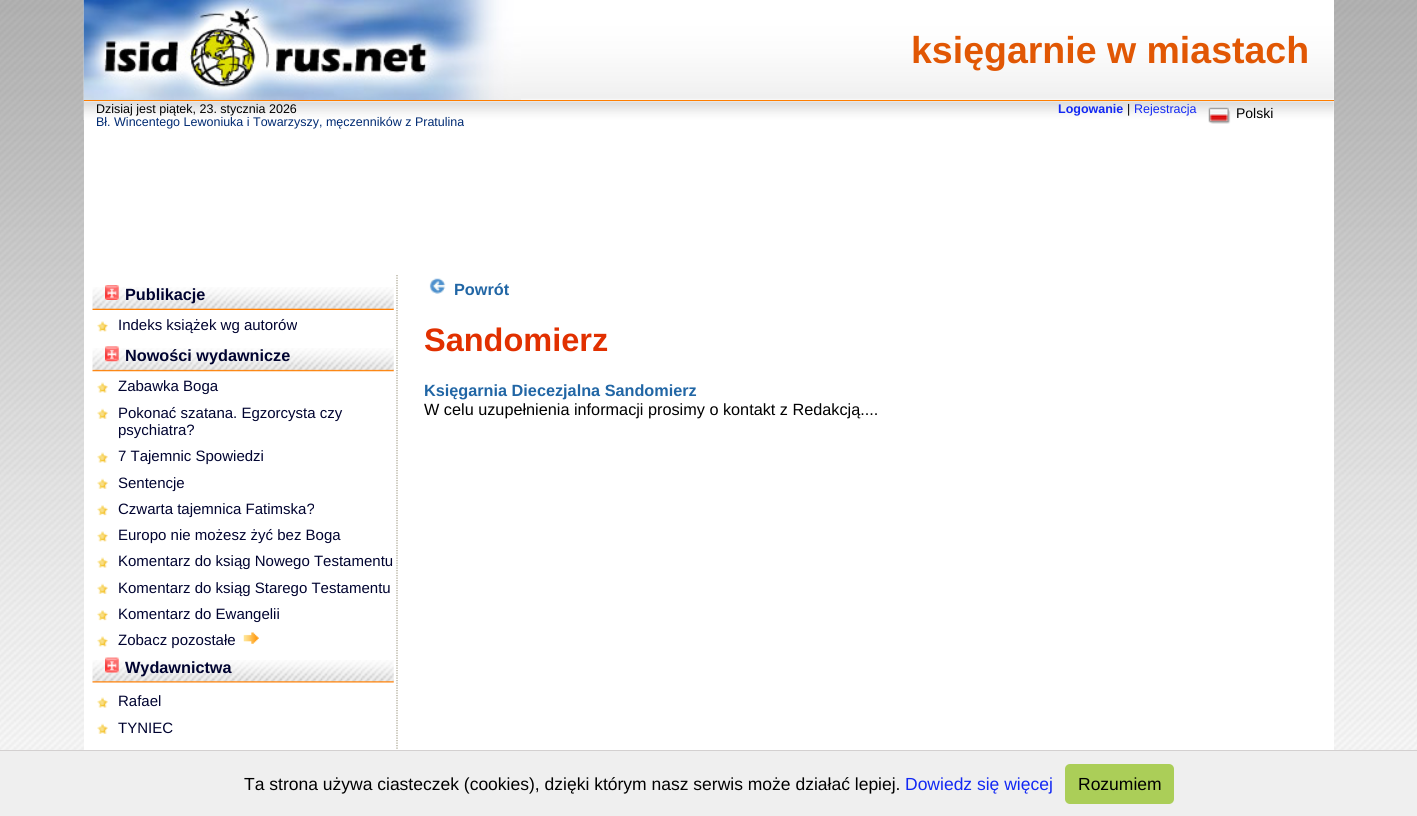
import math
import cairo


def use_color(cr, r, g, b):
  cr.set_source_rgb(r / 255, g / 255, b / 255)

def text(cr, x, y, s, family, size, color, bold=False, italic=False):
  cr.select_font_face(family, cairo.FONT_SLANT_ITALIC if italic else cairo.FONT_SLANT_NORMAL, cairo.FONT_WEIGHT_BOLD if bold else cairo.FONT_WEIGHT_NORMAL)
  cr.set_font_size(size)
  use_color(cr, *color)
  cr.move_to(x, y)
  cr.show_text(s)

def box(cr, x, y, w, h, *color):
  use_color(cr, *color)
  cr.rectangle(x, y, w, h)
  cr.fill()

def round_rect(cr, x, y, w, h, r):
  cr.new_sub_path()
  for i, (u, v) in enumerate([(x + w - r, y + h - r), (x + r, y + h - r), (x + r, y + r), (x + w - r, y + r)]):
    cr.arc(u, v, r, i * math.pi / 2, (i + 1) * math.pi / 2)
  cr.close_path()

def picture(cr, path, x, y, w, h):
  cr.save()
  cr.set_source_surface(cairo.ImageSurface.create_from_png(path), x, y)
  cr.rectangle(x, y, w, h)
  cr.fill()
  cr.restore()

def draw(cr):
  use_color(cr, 255, 255, 255)
  cr.paint()
  picture(cr, "img_01.png", 0, 0, 1417, 750)
  box(cr, 84, 0, 1250, 750, 255, 255, 255)
  picture(cr, "img_02.png", 83, 0, 1251, 100)
  box(cr, 84, 100, 1250, 1, 255, 126, 0)
  picture(cr, "img_03.png", 83, 0, 438, 100)
  picture(cr, "img_04.png", 83, 101, 1251, 19)
  picture(cr, "img_05.png", 1208, 107, 23, 17)
  cr.new_path()
  cr.move_to(397, 275)
  cr.line_to(397, 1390)
  use_color(cr, 167, 161, 140)
  cr.set_line_width(1.2)
  cr.set_dash([1.25, 1.25])
  cr.stroke()
  picture(cr, "img_06.png", 92, 287, 302, 23)
  picture(cr, "img_07.png", 105, 285, 14, 15)
  picture(cr, "img_08.png", 97, 321, 11, 11)
  picture(cr, "img_09.png", 92, 348, 302, 24)
  picture(cr, "img_10.png", 105, 346, 14, 16)
  picture(cr, "img_11.png", 97, 382, 11, 11)
  picture(cr, "img_12.png", 97, 408, 11, 11)
  picture(cr, "img_11.png", 97, 452, 11, 11)
  picture(cr, "img_12.png", 97, 478, 11, 11)
  picture(cr, "img_13.png", 97, 505, 11, 11)
  picture(cr, "img_08.png", 97, 531, 11, 11)
  picture(cr, "img_11.png", 97, 557, 11, 11)
  picture(cr, "img_14.png", 97, 583, 11, 11)
  picture(cr, "img_13.png", 97, 610, 11, 11)
  picture(cr, "img_08.png", 97, 636, 11, 11)
  picture(cr, "img_15.png", 243, 632, 16, 12)
  picture(cr, "img_16.png", 92, 660, 302, 23)
  picture(cr, "img_17.png", 105, 657, 14, 16)
  picture(cr, "img_11.png", 97, 697, 11, 11)
  picture(cr, "img_12.png", 97, 723, 11, 11)
  picture(cr, "img_18.png", 429, 278, 17, 16)
  box(cr, 0, 751, 1417, 65, 239, 239, 239)
  box(cr, 0, 750, 1417, 1, 211, 208, 208)
  use_color(cr, 171, 206, 88)
  round_rect(cr, 1065, 764, 109, 40, 5)
  cr.fill()
  text(cr, 911, 63, "księgarnie w miastach", "Liberation Sans", 37.5, (225, 87, 4), bold=True)
  text(cr, 96, 113, "Dzisiaj jest piątek, 23. stycznia 2026", "Liberation Sans", 12.5, (0, 0, 0))
  text(cr, 96, 126, "Bł. Wincentego Lewoniuka i Towarzyszy, męczenników z Pratulina", "Liberation Sans", 12.5, (0, 42, 114))
  text(cr, 1058, 113, "Logowanie", "Liberation Sans", 12.5, (18, 40, 244), bold=True)
  text(cr, 1127, 113, "|", "Liberation Sans", 12.5, (0, 0, 0))
  text(cr, 1134, 113, "Rejestracja", "Liberation Sans", 12.5, (18, 40, 244))
  text(cr, 1236, 118, "Polski", "Liberation Sans", 14, (0, 0, 0))
  text(cr, 125, 300, "Publikacje", "Liberation Sans", 16.25, (0, 3, 48), bold=True)
  text(cr, 118, 330, "Indeks książek wg autorów", "Liberation Sans", 15, (0, 3, 48))
  text(cr, 125, 361, "Nowości wydawnicze", "Liberation Sans", 16.25, (0, 3, 48), bold=True)
  text(cr, 118, 391, "Zabawka Boga", "Liberation Sans", 15, (0, 3, 48))
  text(cr, 118, 418, "Pokonać szatana. Egzorcysta czy", "Liberation Sans", 15, (0, 3, 48))
  text(cr, 118, 435, "psychiatra?", "Liberation Sans", 15, (0, 3, 48))
  text(cr, 118, 461, "7 Tajemnic Spowiedzi", "Liberation Sans", 15, (0, 3, 48))
  text(cr, 118, 488, "Sentencje", "Liberation Sans", 15, (0, 3, 48))
  text(cr, 118, 514, "Czwarta tajemnica Fatimska?", "Liberation Sans", 15, (0, 3, 48))
  text(cr, 118, 540, "Europo nie możesz żyć bez Boga", "Liberation Sans", 15, (0, 3, 48))
  text(cr, 118, 566, "Komentarz do ksiąg Nowego Testamentu", "Liberation Sans", 15, (0, 3, 48))
  text(cr, 118, 593, "Komentarz do ksiąg Starego Testamentu", "Liberation Sans", 15, (0, 3, 48))
  text(cr, 118, 619, "Komentarz do Ewangelii", "Liberation Sans", 15, (0, 3, 48))
  text(cr, 118, 645, "Zobacz pozostałe", "Liberation Sans", 15, (0, 3, 48))
  text(cr, 125, 673, "Wydawnictwa", "Liberation Sans", 16.25, (0, 3, 48), bold=True)
  text(cr, 118, 706, "Rafael", "Liberation Sans", 15, (0, 3, 48))
  text(cr, 118, 733, "TYNIEC", "Liberation Sans", 15, (0, 3, 48))
  text(cr, 454, 295, "Powrót", "Liberation Sans", 16.25, (33, 102, 165), bold=True)
  text(cr, 424, 351, "Sandomierz", "Liberation Sans", 32.5, (225, 48, 0), bold=True)
  text(cr, 424, 396, "Księgarnia Diecezjalna Sandomierz", "Liberation Sans", 16.25, (33, 102, 165), bold=True)
  text(cr, 424, 415, "W celu uzupełnienia informacji prosimy o kontakt z Redakcją....", "Liberation Sans", 16.25, (0, 0, 0))
  text(cr, 244, 790, "Ta strona używa ciasteczek (cookies), dzięki którym nasz serwis może działać lepiej.", "Liberation Sans", 17.5, (0, 0, 0))
  text(cr, 905, 790, "Dowiedz się więcej", "Liberation Sans", 17.5, (18, 40, 244))
  text(cr, 1078, 790, "Rozumiem", "Liberation Sans", 17.5, (0, 0, 0))


surface = cairo.ImageSurface(cairo.FORMAT_RGB24, 1417, 816)
cr = cairo.Context(surface)
options = cairo.FontOptions()
options.set_hint_metrics(cairo.HINT_METRICS_OFF)
options.set_hint_style(cairo.HINT_STYLE_NONE)
cr.set_font_options(options)
cr.set_miter_limit(4)
draw(cr)
surface.write_to_png("out.png")
